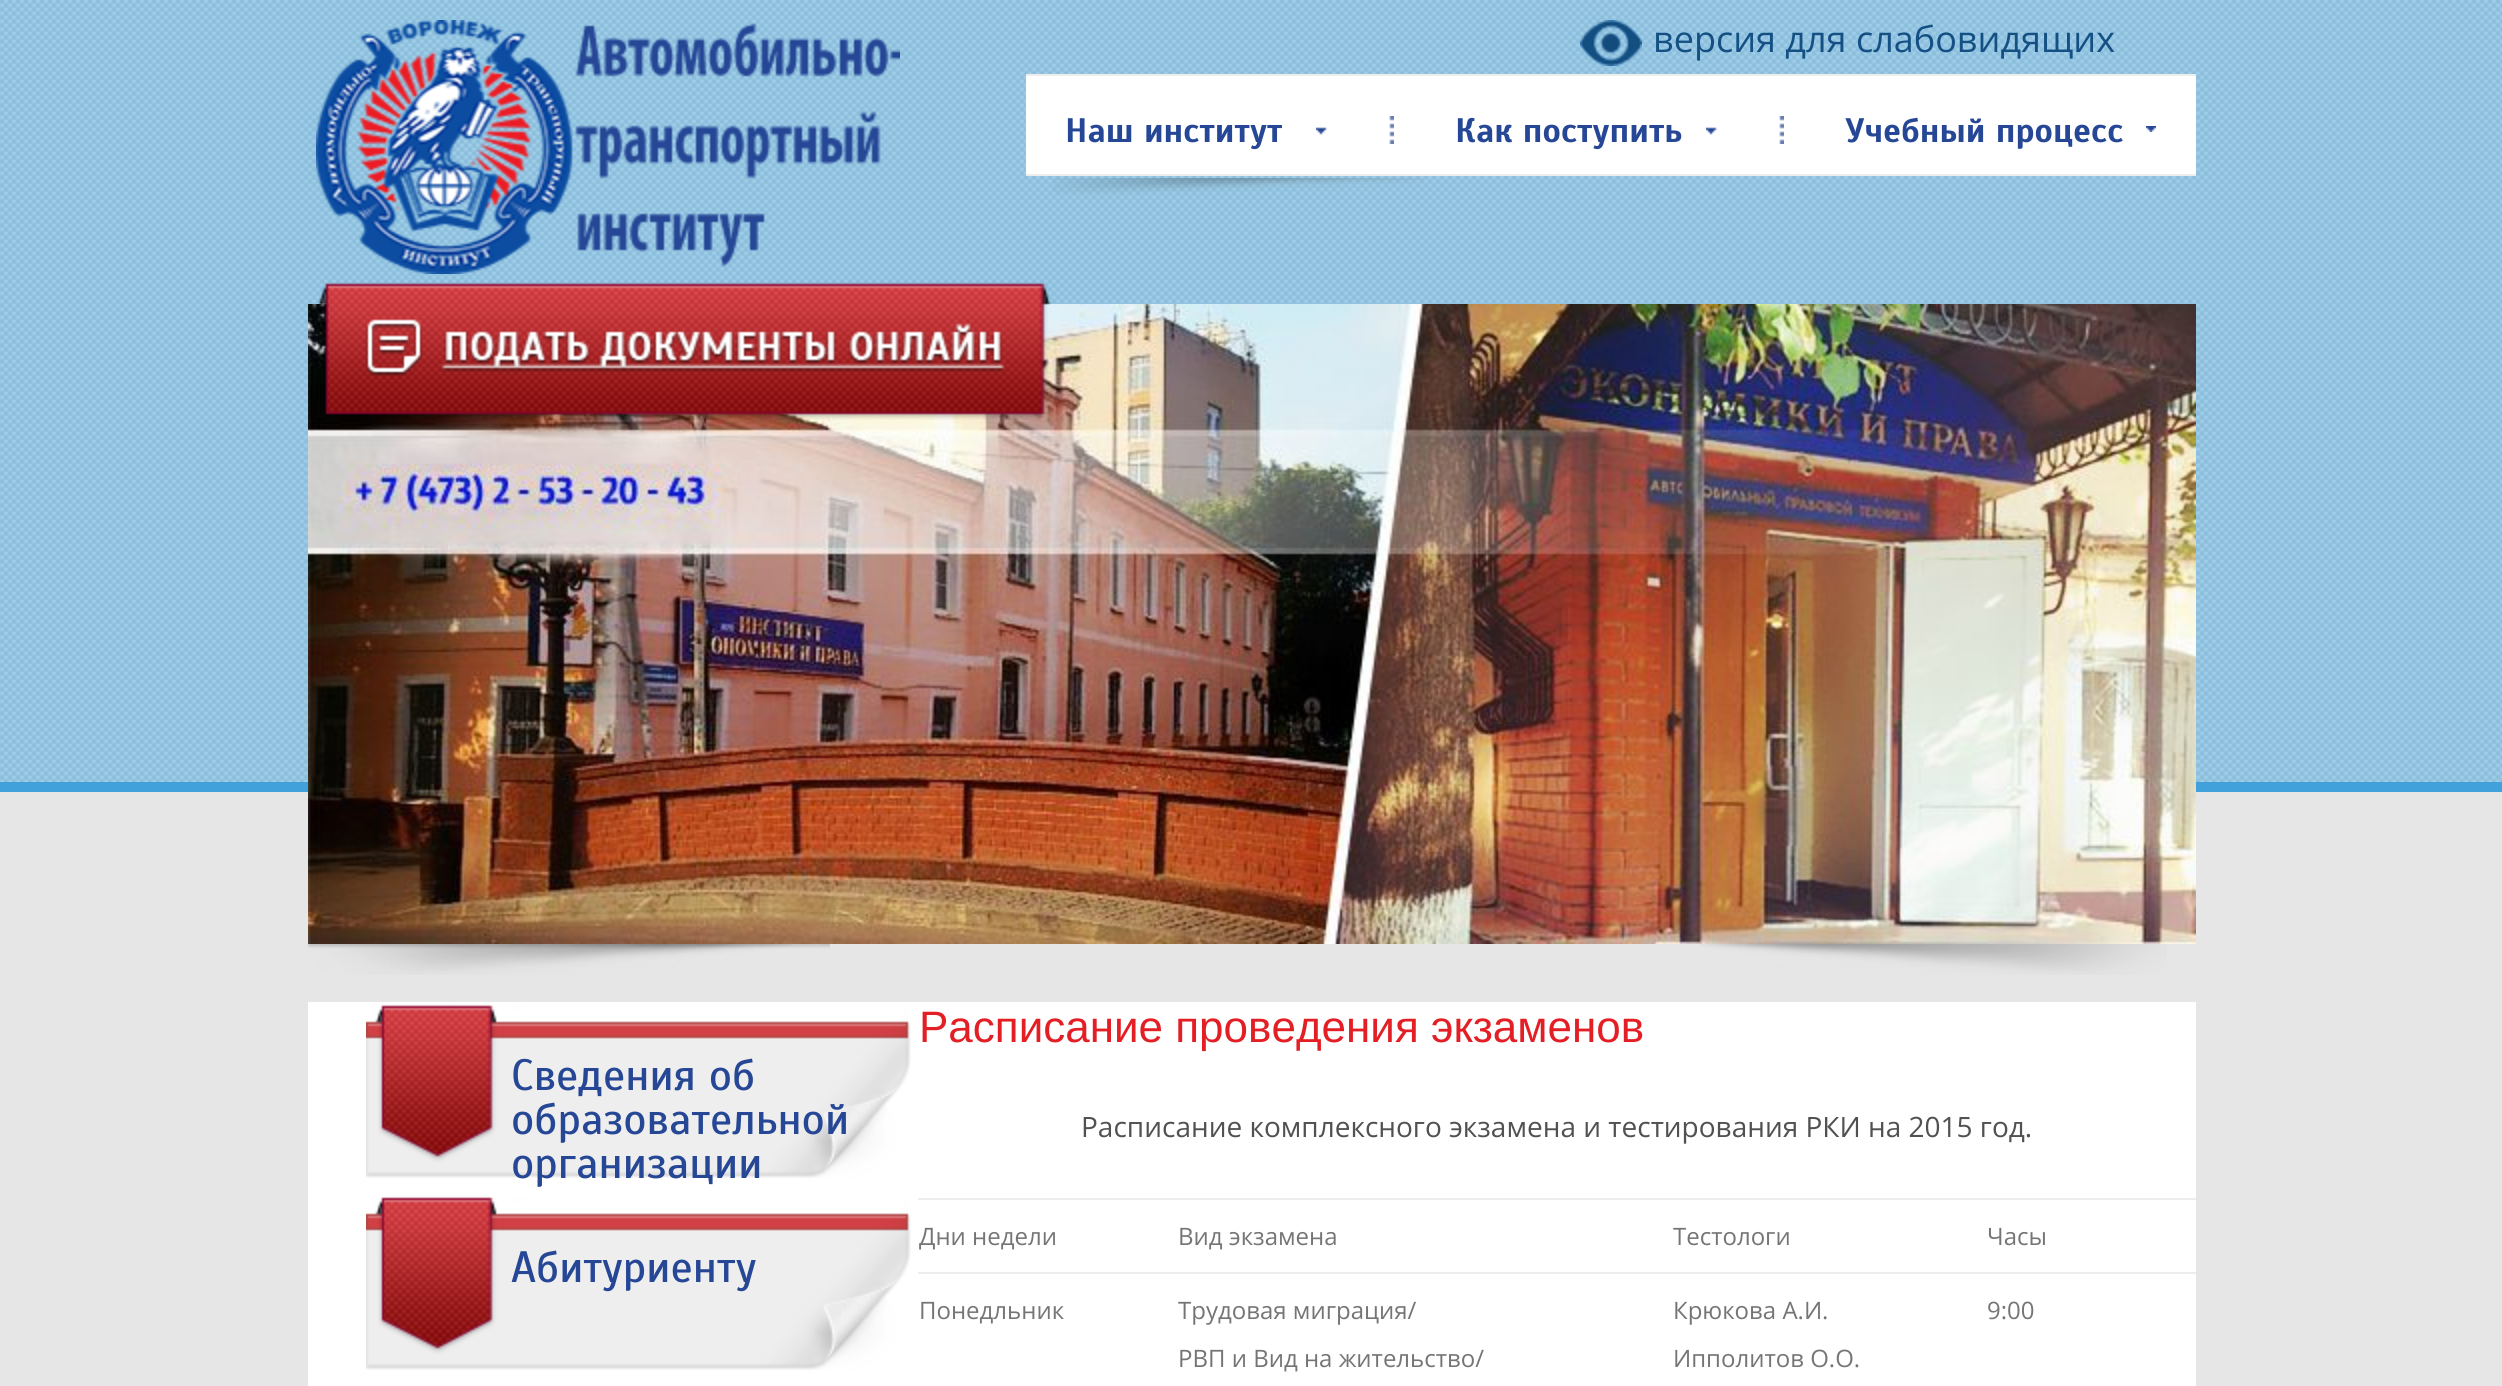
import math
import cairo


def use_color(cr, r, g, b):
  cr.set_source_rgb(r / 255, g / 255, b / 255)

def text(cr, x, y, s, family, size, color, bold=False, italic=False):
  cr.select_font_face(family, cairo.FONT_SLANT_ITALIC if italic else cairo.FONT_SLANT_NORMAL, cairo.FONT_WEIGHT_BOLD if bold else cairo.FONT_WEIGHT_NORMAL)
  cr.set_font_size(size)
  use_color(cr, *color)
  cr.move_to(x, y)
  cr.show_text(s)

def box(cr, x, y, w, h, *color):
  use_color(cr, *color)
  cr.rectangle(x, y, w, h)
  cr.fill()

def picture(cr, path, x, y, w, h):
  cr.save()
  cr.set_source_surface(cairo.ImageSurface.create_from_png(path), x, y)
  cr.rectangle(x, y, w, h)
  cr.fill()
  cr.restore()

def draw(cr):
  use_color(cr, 230, 230, 230)
  cr.paint()
  picture(cr, "img_01.png", 0, 0, 2502, 782)
  box(cr, 0, 782, 2502, 10, 64, 161, 219)
  picture(cr, "img_02.png", 316, 20, 584, 254)
  picture(cr, "img_03.png", 1580, 20, 62, 46)
  box(cr, 1026, 76, 1170, 98, 255, 255, 255)
  box(cr, 1026, 74, 1170, 2, 237, 237, 237)
  box(cr, 1026, 174, 1170, 2, 237, 237, 237)
  picture(cr, "img_04.png", 1316, 116, 78, 28)
  picture(cr, "img_04.png", 1706, 116, 78, 28)
  picture(cr, "img_05.png", 2146, 126, 10, 6)
  picture(cr, "img_06.png", 1053, 178, 371, 16)
  picture(cr, "img_08.png", 308, 304, 1888, 640)
  picture(cr, "img_07.png", 318, 282, 733, 138)
  picture(cr, "img_09.png", 308, 944, 522, 31)
  picture(cr, "img_10.png", 1700, 944, 467, 31)
  box(cr, 308, 1002, 1888, 384, 255, 255, 255)
  picture(cr, "img_11.png", 366, 1004, 545, 174)
  picture(cr, "img_11.png", 366, 1196, 545, 174)
  box(cr, 918, 1198, 1278, 2, 237, 237, 237)
  box(cr, 918, 1272, 1278, 2, 237, 237, 237)
  text(cr, 1653, 52, "версия для слабовидящих", "Open Sans", 36, (20, 80, 132))
  text(cr, 1065, 142, "Наш институт", "Scada", 34, (38, 71, 149), bold=True)
  text(cr, 1455, 142, "Как поступить", "Scada", 34, (38, 71, 149), bold=True)
  text(cr, 1845, 142, "Учебный процесс", "Scada", 34, (38, 71, 149), bold=True)
  text(cr, 511, 1090, "Сведения об", "Scada", 44, (38, 71, 149))
  text(cr, 511, 1134, "образовательной", "Scada", 44, (38, 71, 149))
  text(cr, 511, 1178, "организации", "Scada", 44, (38, 71, 149))
  text(cr, 511, 1282, "Абитуриенту", "Scada", 44, (38, 71, 149))
  text(cr, 919, 1042, "Расписание проведения экзаменов", "Liberation Sans", 44, (227, 30, 36))
  text(cr, 1081, 1137, "Расписание комплексного экзамена и тестирования РКИ на 2015 год.", "Open Sans", 28, (81, 81, 81))
  text(cr, 919, 1245, "Дни недели", "Open Sans", 24, (117, 117, 117))
  text(cr, 1178, 1245, "Вид экзамена", "Open Sans", 24, (117, 117, 117))
  text(cr, 1673, 1245, "Тестологи", "Open Sans", 24, (117, 117, 117))
  text(cr, 1987, 1245, "Часы", "Open Sans", 24, (117, 117, 117))
  text(cr, 919, 1319, "Понедльник", "Open Sans", 24, (117, 117, 117))
  text(cr, 1178, 1319, "Трудовая миграция/", "Open Sans", 24, (117, 117, 117))
  text(cr, 1178, 1367, "РВП и Вид на жительство/", "Open Sans", 24, (117, 117, 117))
  text(cr, 1673, 1319, "Крюкова А.И.", "Open Sans", 24, (117, 117, 117))
  text(cr, 1673, 1367, "Ипполитов О.О.", "Open Sans", 24, (117, 117, 117))
  text(cr, 1987, 1319, "9:00", "Open Sans", 24, (117, 117, 117))


surface = cairo.ImageSurface(cairo.FORMAT_RGB24, 2502, 1386)
cr = cairo.Context(surface)
options = cairo.FontOptions()
options.set_hint_metrics(cairo.HINT_METRICS_OFF)
options.set_hint_style(cairo.HINT_STYLE_NONE)
cr.set_font_options(options)
cr.set_miter_limit(4)
draw(cr)
surface.write_to_png("out.png")
